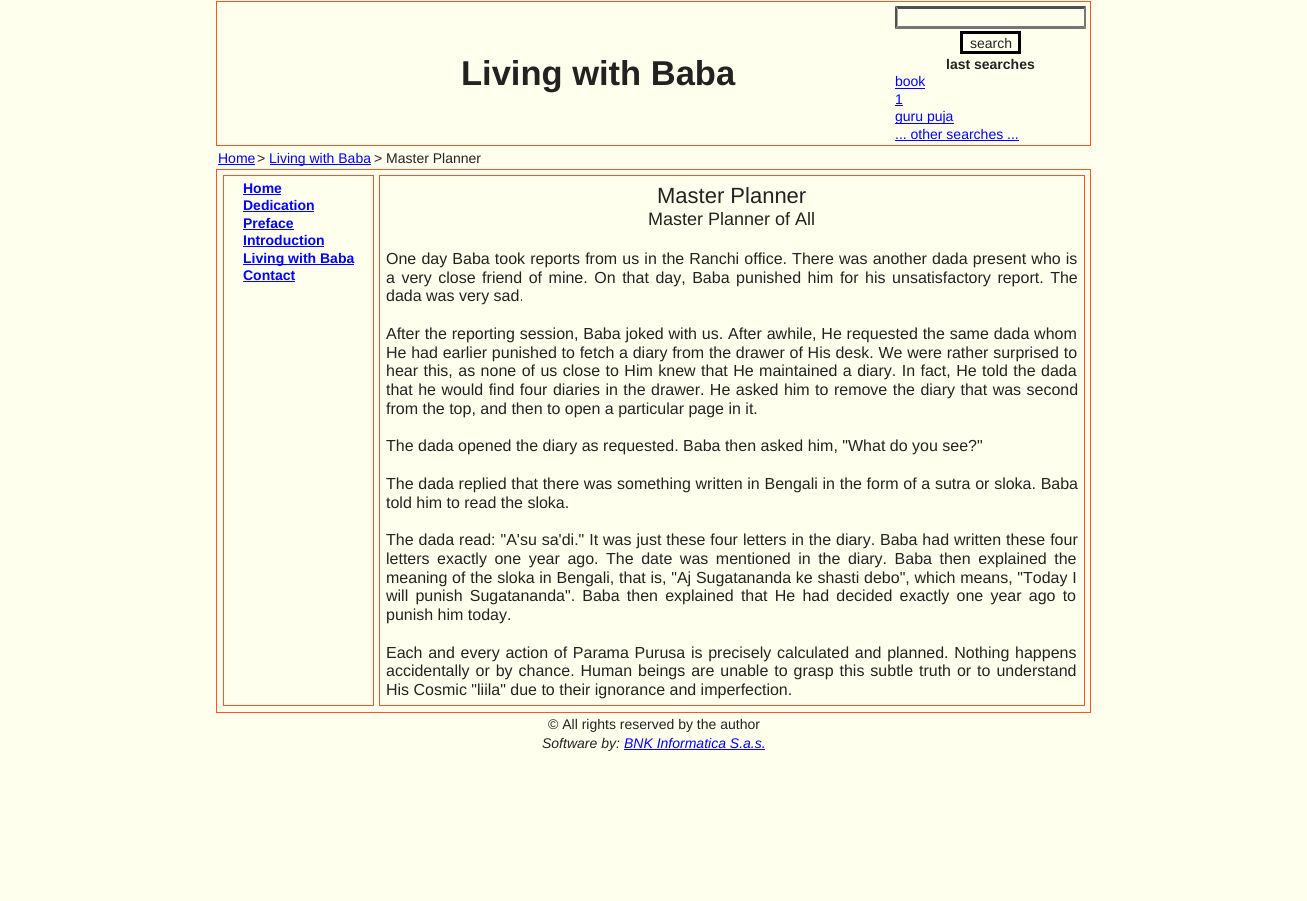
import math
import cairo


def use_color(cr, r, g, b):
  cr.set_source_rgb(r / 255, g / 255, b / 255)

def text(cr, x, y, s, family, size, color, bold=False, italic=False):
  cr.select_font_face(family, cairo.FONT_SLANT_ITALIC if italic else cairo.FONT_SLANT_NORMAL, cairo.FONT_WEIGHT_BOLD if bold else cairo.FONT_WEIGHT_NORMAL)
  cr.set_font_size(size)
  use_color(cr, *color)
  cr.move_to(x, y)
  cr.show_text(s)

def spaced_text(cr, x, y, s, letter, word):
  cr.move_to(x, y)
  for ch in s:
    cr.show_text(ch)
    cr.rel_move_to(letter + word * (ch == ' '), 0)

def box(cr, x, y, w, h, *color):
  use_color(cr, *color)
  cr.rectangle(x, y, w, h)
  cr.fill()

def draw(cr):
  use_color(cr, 255, 255, 238)
  cr.paint()
  box(cr, 216, 1, 875, 1, 255, 85, 34)
  box(cr, 1090, 1, 1, 145, 255, 85, 34)
  box(cr, 216, 145, 875, 1, 255, 85, 34)
  box(cr, 216, 1, 1, 145, 255, 85, 34)
  use_color(cr, 79, 79, 79)
  cr.new_path()
  cr.move_to(895, 6)
  cr.line_to(1086, 6)
  cr.line_to(1084, 9)
  cr.line_to(898, 9)
  cr.close_path()
  cr.fill()
  use_color(cr, 118, 118, 118)
  cr.new_path()
  cr.move_to(1086, 6)
  cr.line_to(1086, 29)
  cr.line_to(1084, 26)
  cr.line_to(1084, 9)
  cr.close_path()
  cr.fill()
  cr.new_path()
  cr.move_to(1086, 29)
  cr.line_to(895, 29)
  cr.line_to(898, 26)
  cr.line_to(1084, 26)
  cr.close_path()
  cr.fill()
  use_color(cr, 79, 79, 79)
  cr.new_path()
  cr.move_to(895, 29)
  cr.line_to(895, 6)
  cr.line_to(897.5, 9)
  cr.line_to(897.5, 26)
  cr.close_path()
  cr.fill()
  cr.rectangle(961.5, 32.5, 58, 20)
  use_color(cr, 0, 0, 0)
  cr.set_line_width(3)
  cr.stroke()
  box(cr, 895, 88, 30, 1, 0, 0, 255)
  box(cr, 895, 105, 8, 1, 0, 0, 255)
  box(cr, 895, 123, 59, 1, 0, 0, 255)
  box(cr, 895, 140, 124, 1, 0, 0, 255)
  box(cr, 218, 164, 37, 1, 0, 0, 255)
  box(cr, 270, 164, 101, 1, 0, 0, 255)
  cr.rectangle(216.5, 169.5, 874, 543)
  use_color(cr, 255, 85, 34)
  cr.set_line_width(1)
  cr.stroke()
  cr.rectangle(223.5, 175.5, 150, 530)
  cr.stroke()
  box(cr, 243, 194, 38, 1, 0, 0, 255)
  box(cr, 243, 211, 71, 1, 0, 0, 255)
  box(cr, 243, 229, 51, 1, 0, 0, 255)
  box(cr, 243, 246, 81, 1, 0, 0, 255)
  box(cr, 243, 264, 111, 1, 0, 0, 255)
  box(cr, 243, 281, 52, 1, 0, 0, 255)
  cr.rectangle(379.5, 175.5, 705, 530)
  use_color(cr, 255, 85, 34)
  cr.stroke()
  box(cr, 624, 749, 141, 1, 0, 0, 255)
  text(cr, 461, 85, "Living with Baba", "Liberation Sans", 34.5, (34, 34, 34), bold=True)
  text(cr, 970, 48, "search", "Liberation Sans", 14, (34, 34, 34))
  text(cr, 946, 69, "last searches", "Liberation Sans", 14, (34, 34, 34), bold=True)
  text(cr, 895, 86, "book", "Liberation Sans", 14, (0, 0, 255))
  text(cr, 895, 104, "1", "Liberation Sans", 14, (0, 0, 255))
  text(cr, 895, 121, "guru puja", "Liberation Sans", 14, (0, 0, 255))
  text(cr, 895, 139, "... other searches ...", "Liberation Sans", 14, (0, 0, 255))
  text(cr, 218, 163, "Home", "Liberation Sans", 14, (0, 0, 255))
  text(cr, 257, 163, ">", "Liberation Sans", 14, (34, 34, 34))
  text(cr, 269, 163, "Living with Baba", "Liberation Sans", 14, (0, 0, 255))
  text(cr, 374, 163, "> Master Planner", "Liberation Sans", 14, (34, 34, 34))
  text(cr, 243, 193, "Home", "Liberation Sans", 14, (0, 0, 255), bold=True)
  text(cr, 243, 210, "Dedication", "Liberation Sans", 14, (0, 0, 255), bold=True)
  text(cr, 243, 228, "Preface", "Liberation Sans", 14, (0, 0, 255), bold=True)
  text(cr, 243, 245, "Introduction", "Liberation Sans", 14, (0, 0, 255), bold=True)
  text(cr, 243, 263, "Living with Baba", "Liberation Sans", 14, (0, 0, 255), bold=True)
  text(cr, 243, 280, "Contact", "Liberation Sans", 14, (0, 0, 255), bold=True)
  text(cr, 657, 203, "Master Planner", "Liberation Sans", 22, (34, 34, 34))
  text(cr, 648, 225, "Master Planner of All", "Liberation Sans", 18, (34, 34, 34))
  cr.set_font_size(16)
  spaced_text(cr, 386, 264, "One day Baba took reports from us in the Ranchi office. There was another dada present who is", 0, 0.7)
  spaced_text(cr, 386, 283, "a very close friend of mine. On that day, Baba punished him for his unsatisfactory report. The", 0, 2.1)
  text(cr, 386, 301, "dada was very sad.", "Liberation Sans", 16, (34, 34, 34))
  spaced_text(cr, 386, 339, "After the reporting session, Baba joked with us. After awhile, He requested the same dada whom", 0, 0.4)
  spaced_text(cr, 386, 358, "He had earlier punished to fetch a diary from the drawer of His desk. We were rather surprised to", 0, 0.3)
  spaced_text(cr, 386, 376, "hear this, as none of us close to Him knew that He maintained a diary. In fact, He told the dada", 0, 1)
  spaced_text(cr, 386, 395, "that he would find four diaries in the drawer. He asked him to remove the diary that was second", 0, 1)
  text(cr, 386, 414, "from the top, and then to open a particular page in it.", "Liberation Sans", 16, (34, 34, 34))
  text(cr, 386, 451, "The dada opened the diary as requested. Baba then asked him, \"What do you see?\"", "Liberation Sans", 16, (34, 34, 34))
  spaced_text(cr, 386, 489, "The dada replied that there was something written in Bengali in the form of a sutra or sloka. Baba", 0, 0.25)
  text(cr, 386, 508, "told him to read the sloka.", "Liberation Sans", 16, (34, 34, 34))
  spaced_text(cr, 386, 545, "The dada read: \"A'su sa'di.\" It was just these four letters in the diary. Baba had written these four", 0, 0.5)
  spaced_text(cr, 386, 564, "letters exactly one year ago. The date was mentioned in the diary. Baba then explained the", 0, 3.1)
  spaced_text(cr, 386, 583, "meaning of the sloka in Bengali, that is, \"Aj Sugatananda ke shasti debo\", which means, \"Today I", 0, 0.3)
  spaced_text(cr, 386, 601, "will punish Sugatananda\". Baba then explained that He had decided exactly one year ago to", 0, 2.75)
  text(cr, 386, 620, "punish him today.", "Liberation Sans", 16, (34, 34, 34))
  spaced_text(cr, 386, 658, "Each and every action of Parama Purusa is precisely calculated and planned. Nothing happens", 0, 1.25)
  spaced_text(cr, 386, 676, "accidentally or by chance. Human beings are unable to grasp this subtle truth or to understand", 0, 1.5)
  text(cr, 386, 695, "His Cosmic \"liila\" due to their ignorance and imperfection.", "Liberation Sans", 16, (34, 34, 34))
  text(cr, 548, 729, "© All rights reserved by the author", "Liberation Sans", 14, (34, 34, 34))
  text(cr, 542, 748, "Software by:", "Liberation Sans", 14, (34, 34, 34), italic=True)
  text(cr, 624, 748, "BNK Informatica S.a.s.", "Liberation Sans", 14, (0, 0, 255), italic=True)


surface = cairo.ImageSurface(cairo.FORMAT_RGB24, 1307, 901)
cr = cairo.Context(surface)
options = cairo.FontOptions()
options.set_hint_metrics(cairo.HINT_METRICS_OFF)
options.set_hint_style(cairo.HINT_STYLE_NONE)
cr.set_font_options(options)
cr.set_miter_limit(4)
draw(cr)
surface.write_to_png("out.png")
